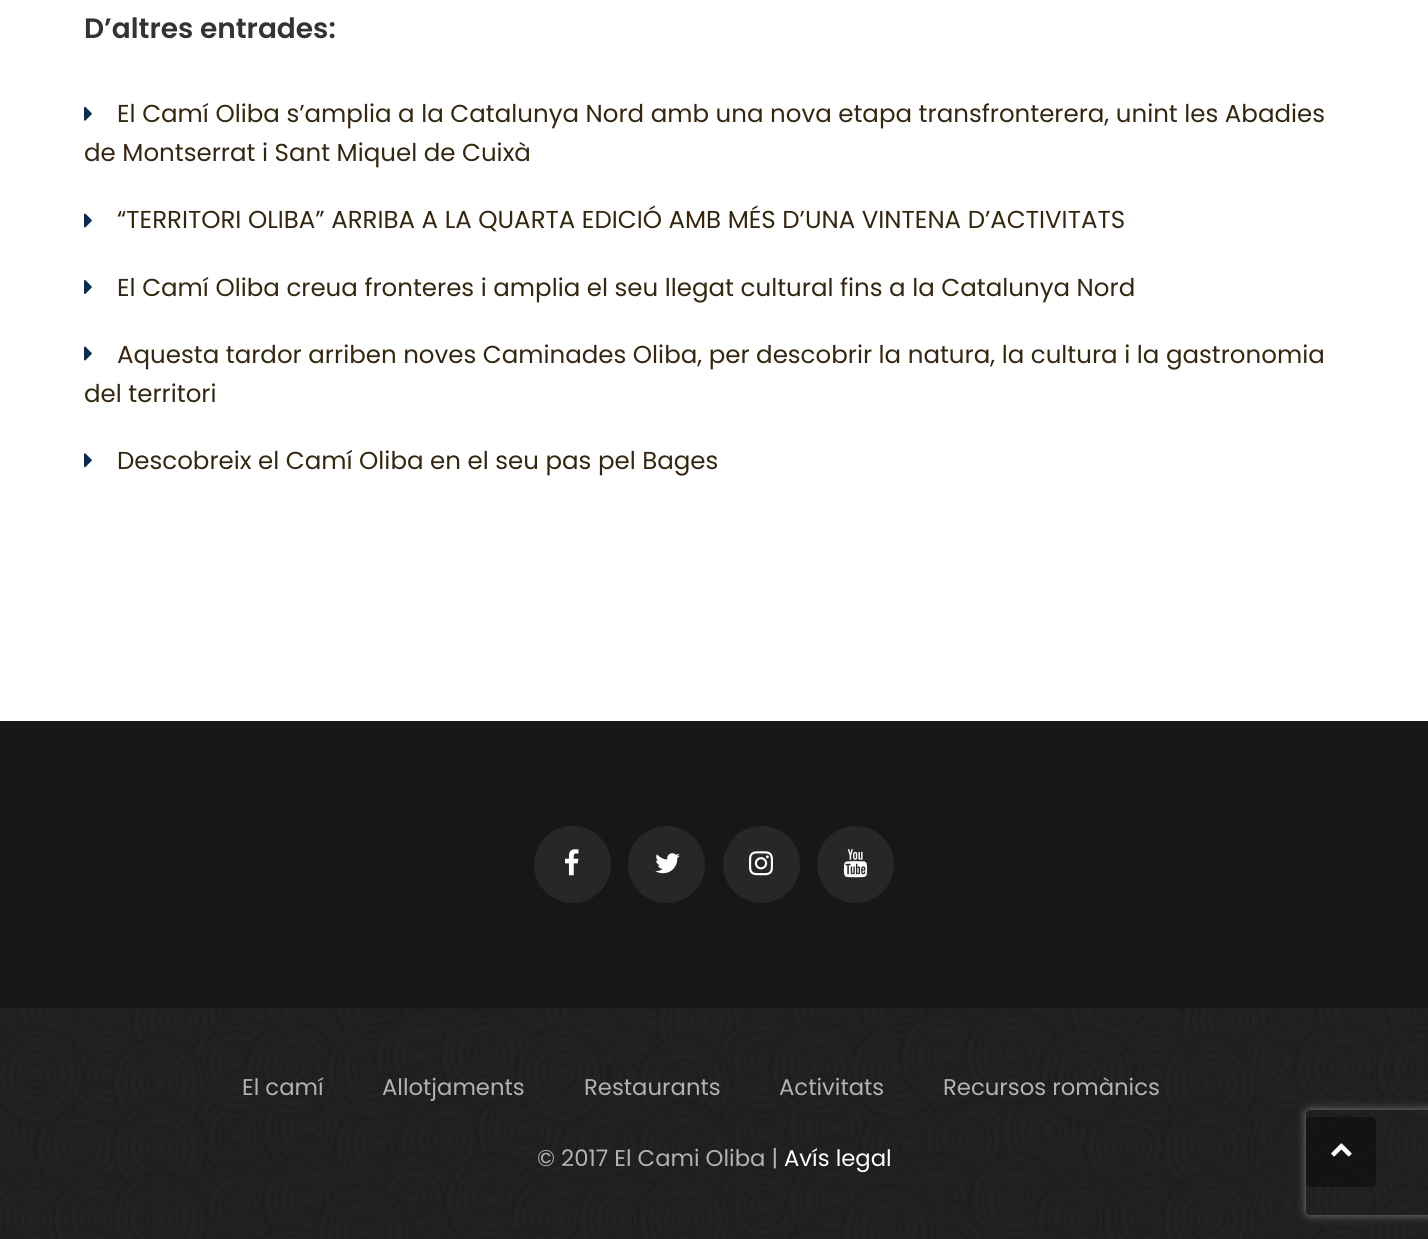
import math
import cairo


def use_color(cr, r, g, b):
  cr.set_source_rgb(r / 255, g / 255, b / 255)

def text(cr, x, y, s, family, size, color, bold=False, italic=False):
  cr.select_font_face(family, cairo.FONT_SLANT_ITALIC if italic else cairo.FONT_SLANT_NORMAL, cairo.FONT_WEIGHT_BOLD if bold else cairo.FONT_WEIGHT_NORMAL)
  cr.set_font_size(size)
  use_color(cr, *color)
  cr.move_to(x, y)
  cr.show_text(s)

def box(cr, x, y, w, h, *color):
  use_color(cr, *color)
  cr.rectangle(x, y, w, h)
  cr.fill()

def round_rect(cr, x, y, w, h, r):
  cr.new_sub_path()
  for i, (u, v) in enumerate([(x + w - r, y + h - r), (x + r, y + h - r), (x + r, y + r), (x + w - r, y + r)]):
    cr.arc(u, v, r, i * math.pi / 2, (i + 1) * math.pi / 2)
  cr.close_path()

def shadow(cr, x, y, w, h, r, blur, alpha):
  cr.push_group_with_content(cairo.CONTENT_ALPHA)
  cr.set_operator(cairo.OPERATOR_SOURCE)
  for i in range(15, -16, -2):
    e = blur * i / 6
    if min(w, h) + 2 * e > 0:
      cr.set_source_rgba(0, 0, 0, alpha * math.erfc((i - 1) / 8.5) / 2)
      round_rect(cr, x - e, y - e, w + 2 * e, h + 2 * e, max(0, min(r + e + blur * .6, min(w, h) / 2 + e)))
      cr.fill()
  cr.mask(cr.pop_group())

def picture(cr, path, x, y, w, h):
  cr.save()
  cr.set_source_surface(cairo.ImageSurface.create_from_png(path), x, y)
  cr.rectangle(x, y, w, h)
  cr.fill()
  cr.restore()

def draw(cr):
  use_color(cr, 255, 255, 255)
  cr.paint()
  picture(cr, "img_01.png", 84, 106, 8, 15)
  picture(cr, "img_02.png", 84, 213, 8, 15)
  picture(cr, "img_03.png", 84, 280, 8, 14)
  picture(cr, "img_02.png", 84, 346, 8, 15)
  picture(cr, "img_04.png", 84, 453, 8, 15)
  picture(cr, "img_05.png", 0, 1008, 1428, 231)
  box(cr, 0, 721, 1428, 287, 23, 23, 23)
  use_color(cr, 37, 39, 41)
  cr.arc(572.5, 864.5, 38.5, 0, 2 * math.pi)
  cr.fill()
  picture(cr, "img_06.png", 565, 849, 14, 27)
  cr.arc(666.5, 864.5, 38.5, 0, 2 * math.pi)
  cr.fill()
  picture(cr, "img_07.png", 655, 853, 25, 21)
  cr.arc(761.5, 864.5, 38.5, 0, 2 * math.pi)
  cr.fill()
  picture(cr, "img_08.png", 749, 851, 24, 25)
  cr.arc(855.5, 864.5, 38.5, 0, 2 * math.pi)
  cr.fill()
  picture(cr, "img_09.png", 843, 849, 25, 29)
  cr.save()
  cr.set_fill_rule(cairo.FILL_RULE_EVEN_ODD)
  cr.new_path()
  cr.move_to(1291, 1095)
  cr.line_to(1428, 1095)
  cr.line_to(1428, 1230)
  cr.line_to(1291, 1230)
  cr.close_path()
  cr.move_to(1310, 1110)
  cr.line_to(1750, 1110)
  cr.curve_to(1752, 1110, 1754, 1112, 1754, 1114)
  cr.line_to(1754, 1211)
  cr.curve_to(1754, 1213, 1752, 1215, 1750, 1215)
  cr.line_to(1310, 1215)
  cr.curve_to(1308, 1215, 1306, 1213, 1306, 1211)
  cr.line_to(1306, 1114)
  cr.curve_to(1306, 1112, 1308, 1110, 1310, 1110)
  cr.close_path()
  cr.clip()
  use_color(cr, 128, 128, 128)
  shadow(cr, 1306, 1110, 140, 105, 4, 4.5, 1)
  cr.restore()
  cr.set_source_rgba(0, 0, 0, 0.4)
  round_rect(cr, 1306, 1117, 70, 70, 4)
  cr.fill()
  picture(cr, "img_10.png", 1331, 1143, 21, 14)
  text(cr, 84, 38, "D’altres entrades:", "Poppins SemiBold", 28, (51, 51, 51))
  text(cr, 117, 122, "El Camí Oliba s’amplia a la Catalunya Nord amb una nova etapa transfronterera, unint les Abadies", "Poppins", 24.5, (52, 39, 17))
  text(cr, 84, 161, "de Montserrat i Sant Miquel de Cuixà", "Poppins", 24.5, (52, 39, 17))
  text(cr, 117, 228, "“TERRITORI OLIBA” ARRIBA A LA QUARTA EDICIÓ AMB MÉS D’UNA VINTENA D’ACTIVITATS", "Poppins", 24.5, (52, 39, 17))
  text(cr, 117, 296, "El Camí Oliba creua fronteres i amplia el seu llegat cultural fins a la Catalunya Nord", "Poppins", 24.5, (52, 39, 17))
  text(cr, 117, 363, "Aquesta tardor arriben noves Caminades Oliba, per descobrir la natura, la cultura i la gastronomia", "Poppins", 24.5, (52, 39, 17))
  text(cr, 84, 402, "del territori", "Poppins", 24.5, (52, 39, 17))
  text(cr, 117, 469, "Descobreix el Camí Oliba en el seu pas pel Bages", "Poppins", 24.5, (52, 39, 17))
  text(cr, 242, 1095, "El camí", "Poppins", 22.75, (178, 178, 178))
  text(cr, 382, 1095, "Allotjaments", "Poppins", 22.75, (178, 178, 178))
  text(cr, 584, 1095, "Restaurants", "Poppins", 22.75, (178, 178, 178))
  text(cr, 779, 1095, "Activitats", "Poppins", 22.75, (178, 178, 178))
  text(cr, 943, 1095, "Recursos romànics", "Poppins", 22.75, (178, 178, 178))
  text(cr, 537, 1166, "© 2017 El Cami Oliba |", "Poppins", 22.75, (178, 178, 178))
  text(cr, 784, 1166, "Avís legal", "Poppins", 22.75, (255, 255, 255))


surface = cairo.ImageSurface(cairo.FORMAT_RGB24, 1428, 1239)
cr = cairo.Context(surface)
options = cairo.FontOptions()
options.set_hint_metrics(cairo.HINT_METRICS_OFF)
options.set_hint_style(cairo.HINT_STYLE_NONE)
cr.set_font_options(options)
cr.set_miter_limit(4)
draw(cr)
surface.write_to_png("out.png")
